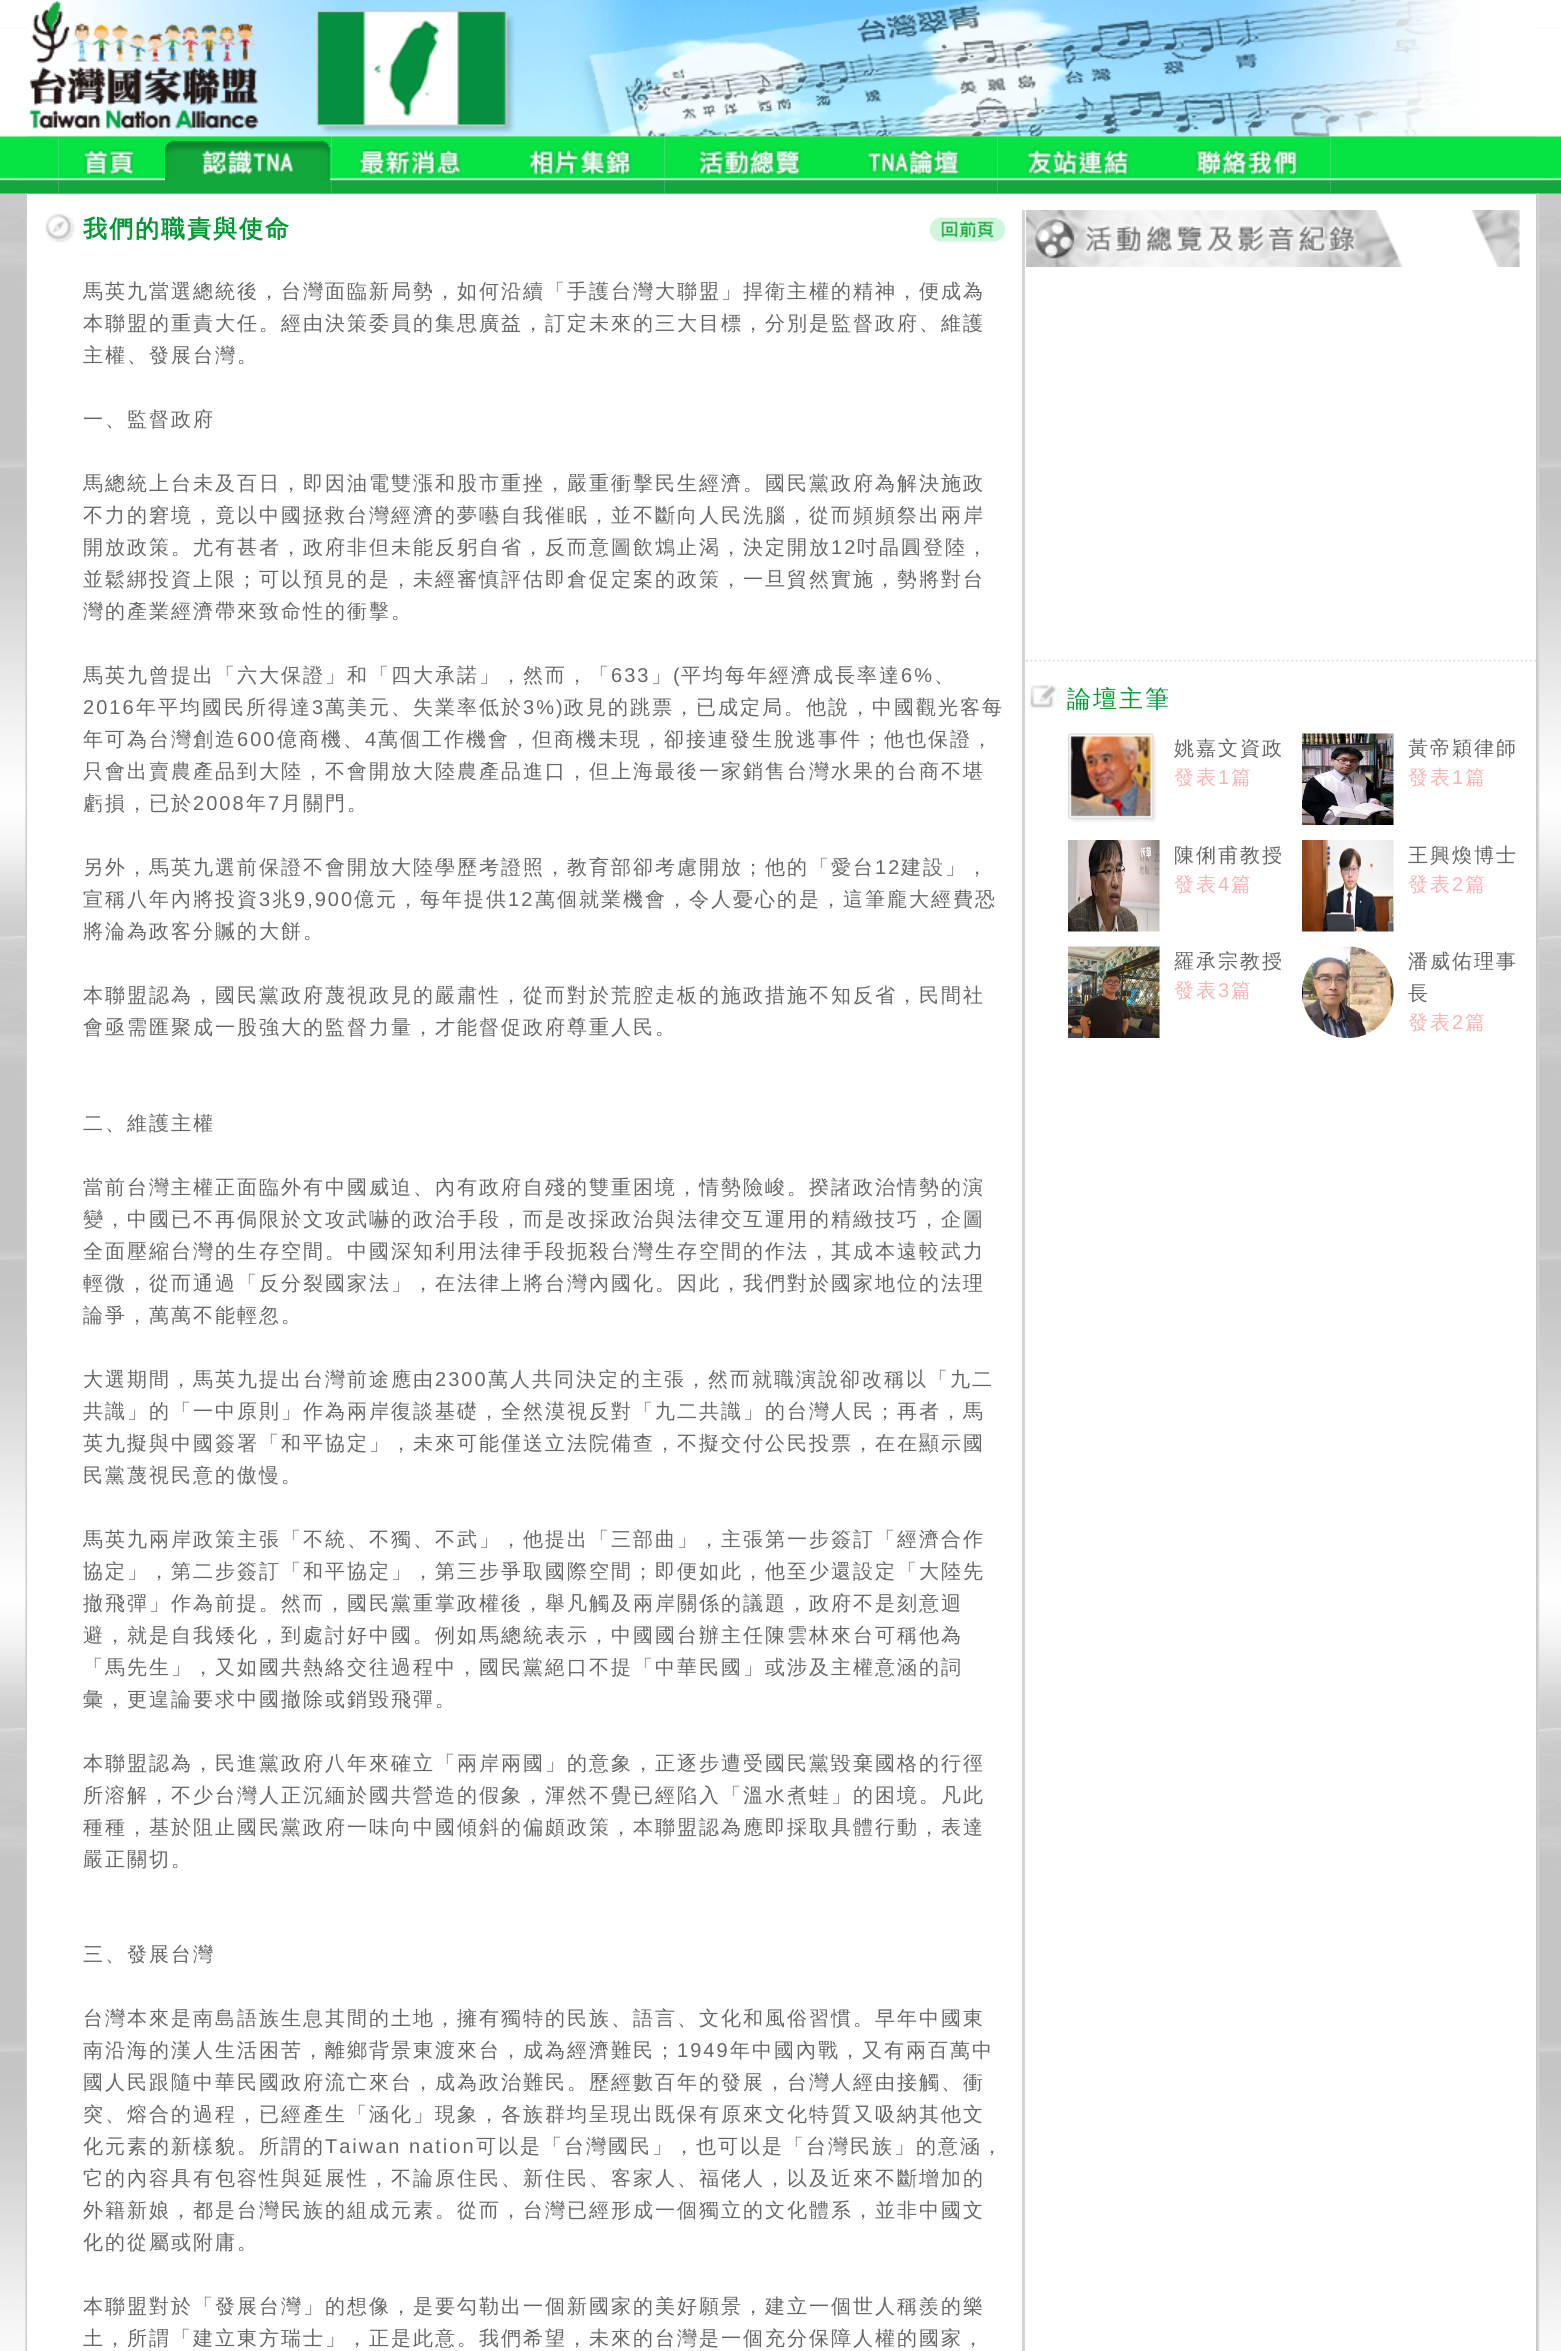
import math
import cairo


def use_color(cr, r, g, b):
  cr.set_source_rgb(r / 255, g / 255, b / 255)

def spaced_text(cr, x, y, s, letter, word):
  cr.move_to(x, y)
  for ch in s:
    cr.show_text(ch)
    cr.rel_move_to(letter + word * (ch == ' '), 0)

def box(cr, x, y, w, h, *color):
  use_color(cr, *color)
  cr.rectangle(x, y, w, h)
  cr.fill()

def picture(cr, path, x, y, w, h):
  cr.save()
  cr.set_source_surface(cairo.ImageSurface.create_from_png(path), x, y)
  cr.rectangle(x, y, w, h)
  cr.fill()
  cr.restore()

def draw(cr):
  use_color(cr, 255, 255, 255)
  cr.paint()
  picture(cr, "img_01.png", 0, 27, 1561, 2324)
  picture(cr, "img_02.png", 0, 29, 18, 165)
  picture(cr, "img_03.png", 1545, 29, 16, 165)
  picture(cr, "img_04.png", 18, 29, 9, 165)
  picture(cr, "img_05.png", 27, 0, 240, 137)
  picture(cr, "img_06.png", 267, 0, 294, 137)
  picture(cr, "img_07.png", 561, 0, 975, 137)
  picture(cr, "img_34.png", 1536, 193, 4, 2158)
  picture(cr, "img_08.png", 1536, 29, 9, 165)
  picture(cr, "img_09.png", 27, 136, 32, 58)
  picture(cr, "img_10.png", 58, 136, 107, 58)
  picture(cr, "img_11.png", 165, 136, 167, 58)
  picture(cr, "img_12.png", 331, 136, 167, 58)
  picture(cr, "img_13.png", 498, 136, 167, 58)
  picture(cr, "img_14.png", 664, 136, 167, 58)
  picture(cr, "img_15.png", 831, 136, 167, 58)
  picture(cr, "img_16.png", 997, 136, 167, 58)
  picture(cr, "img_17.png", 1164, 136, 167, 58)
  picture(cr, "img_18.png", 1330, 136, 206, 58)
  picture(cr, "img_19.png", 25, 219, 2, 2132)
  picture(cr, "img_20.png", 25, 193, 2, 1)
  box(cr, 27, 194, 1509, 2157, 255, 255, 255)
  picture(cr, "img_21.png", 45, 213, 30, 30)
  picture(cr, "img_22.png", 930, 217, 75, 25)
  box(cr, 1022, 210, 3, 2141, 212, 212, 212)
  picture(cr, "img_23.png", 1026, 210, 377, 57)
  picture(cr, "img_24.png", 1402, 210, 118, 57)
  picture(cr, "img_25.png", 1026, 659, 510, 3)
  picture(cr, "img_26.png", 1026, 659, 2, 3)
  picture(cr, "img_27.png", 1030, 684, 27, 25)
  picture(cr, "img_28.png", 1068, 733, 89, 90)
  picture(cr, "img_29.png", 1302, 733, 92, 92)
  picture(cr, "img_30.png", 1068, 840, 92, 92)
  picture(cr, "img_31.png", 1302, 840, 92, 92)
  picture(cr, "img_32.png", 1068, 946, 92, 92)
  picture(cr, "img_33.png", 1302, 946, 92, 92)
  picture(cr, "img_35.png", 1536, 193, 4, 1)
  cr.select_font_face("WenQuanYi Zen Hei", cairo.FONT_SLANT_NORMAL, cairo.FONT_WEIGHT_BOLD)
  cr.set_font_size(24)
  use_color(cr, 0, 153, 51)
  spaced_text(cr, 83, 237, "我們的職責與使命", 2, 0)
  cr.select_font_face("WenQuanYi Zen Hei Medium")
  cr.set_font_size(20)
  use_color(cr, 102, 102, 102)
  spaced_text(cr, 83, 298, "馬英九當選總統後，台灣面臨新局勢，如何沿續「手護台灣大聯盟」捍衛主權的精神，便成為", 2, 0)
  spaced_text(cr, 83, 330, "本聯盟的重責大任。經由決策委員的集思廣益，訂定未來的三大目標，分別是監督政府、維護", 2, 0)
  spaced_text(cr, 83, 362, "主權、發展台灣。", 2, 0)
  spaced_text(cr, 83, 426, "一、監督政府", 2, 0)
  spaced_text(cr, 83, 490, "馬總統上台未及百日，即因油電雙漲和股市重挫，嚴重衝擊民生經濟。國民黨政府為解決施政", 2, 0)
  spaced_text(cr, 83, 522, "不力的窘境，竟以中國拯救台灣經濟的夢囈自我催眠，並不斷向人民洗腦，從而頻頻祭出兩岸", 2, 0)
  spaced_text(cr, 83, 554, "開放政策。尤有甚者，政府非但未能反躬自省，反而意圖飲鴆止渴，決定開放", 2, 0)
  cr.select_font_face("Liberation Sans")
  spaced_text(cr, 831, 554, "12", 2, 0)
  cr.select_font_face("WenQuanYi Zen Hei Medium")
  spaced_text(cr, 857, 554, "吋晶圓登陸，", 2, 0)
  spaced_text(cr, 83, 586, "並鬆綁投資上限；可以預見的是，未經審慎評估即倉促定案的政策，一旦貿然實施，勢將對台", 2, 0)
  spaced_text(cr, 83, 618, "灣的產業經濟帶來致命性的衝擊。", 2, 0)
  spaced_text(cr, 83, 682, "馬英九曾提出「六大保證」和「四大承諾」，然而，「", 2, 0)
  cr.select_font_face("Liberation Sans")
  spaced_text(cr, 611, 682, "633", 2, 0)
  cr.select_font_face("WenQuanYi Zen Hei Medium")
  spaced_text(cr, 651, 682, "」", 2, 0)
  cr.select_font_face("Liberation Sans")
  spaced_text(cr, 673, 682, "(", 2, 0)
  cr.select_font_face("WenQuanYi Zen Hei Medium")
  spaced_text(cr, 681, 682, "平均每年經濟成長率達", 2, 0)
  cr.select_font_face("Liberation Sans")
  spaced_text(cr, 901, 682, "6%", 2, 0)
  cr.select_font_face("WenQuanYi Zen Hei Medium")
  spaced_text(cr, 934, 682, "、", 2, 0)
  cr.select_font_face("Liberation Sans")
  spaced_text(cr, 83, 714, "2016", 2, 0)
  cr.select_font_face("WenQuanYi Zen Hei Medium")
  spaced_text(cr, 136, 714, "年平均國民所得達", 2, 0)
  cr.select_font_face("Liberation Sans")
  spaced_text(cr, 312, 714, "3", 2, 0)
  cr.select_font_face("WenQuanYi Zen Hei Medium")
  spaced_text(cr, 325, 714, "萬美元、失業率低於", 2, 0)
  cr.select_font_face("Liberation Sans")
  spaced_text(cr, 523, 714, "3%)", 2, 0)
  cr.select_font_face("WenQuanYi Zen Hei Medium")
  spaced_text(cr, 564, 714, "政見的跳票，已成定局。他說，中國觀光客每", 2, 0)
  spaced_text(cr, 83, 746, "年可為台灣創造", 2, 0)
  cr.select_font_face("Liberation Sans")
  spaced_text(cr, 237, 746, "600", 2, 0)
  cr.select_font_face("WenQuanYi Zen Hei Medium")
  spaced_text(cr, 277, 746, "億商機、", 2, 0)
  cr.select_font_face("Liberation Sans")
  spaced_text(cr, 365, 746, "4", 2, 0)
  cr.select_font_face("WenQuanYi Zen Hei Medium")
  spaced_text(cr, 378, 746, "萬個工作機會，但商機未現，卻接連發生脫逃事件；他也保證，", 2, 0)
  spaced_text(cr, 83, 778, "只會出賣農產品到大陸，不會開放大陸農產品進口，但上海最後一家銷售台灣水果的台商不堪", 2, 0)
  spaced_text(cr, 83, 810, "虧損，已於", 2, 0)
  cr.select_font_face("Liberation Sans")
  spaced_text(cr, 193, 810, "2008", 2, 0)
  cr.select_font_face("WenQuanYi Zen Hei Medium")
  spaced_text(cr, 246, 810, "年", 2, 0)
  cr.select_font_face("Liberation Sans")
  spaced_text(cr, 268, 810, "7", 2, 0)
  cr.select_font_face("WenQuanYi Zen Hei Medium")
  spaced_text(cr, 281, 810, "月關門。", 2, 0)
  spaced_text(cr, 83, 874, "另外，馬英九選前保證不會開放大陸學歷考證照，教育部卻考慮開放；他的「愛台", 2, 0)
  cr.select_font_face("Liberation Sans")
  spaced_text(cr, 875, 874, "12", 2, 0)
  cr.select_font_face("WenQuanYi Zen Hei Medium")
  spaced_text(cr, 901, 874, "建設」，", 2, 0)
  spaced_text(cr, 83, 906, "宣稱八年內將投資", 2, 0)
  cr.select_font_face("Liberation Sans")
  spaced_text(cr, 259, 906, "3", 2, 0)
  cr.select_font_face("WenQuanYi Zen Hei Medium")
  spaced_text(cr, 272, 906, "兆", 2, 0)
  cr.select_font_face("Liberation Sans")
  spaced_text(cr, 294, 906, "9,900", 2, 0)
  cr.select_font_face("WenQuanYi Zen Hei Medium")
  spaced_text(cr, 354, 906, "億元，每年提供", 2, 0)
  cr.select_font_face("Liberation Sans")
  spaced_text(cr, 508, 906, "12", 2, 0)
  cr.select_font_face("WenQuanYi Zen Hei Medium")
  spaced_text(cr, 535, 906, "萬個就業機會，令人憂心的是，這筆龐大經費恐", 2, 0)
  spaced_text(cr, 83, 938, "將淪為政客分贓的大餅。", 2, 0)
  spaced_text(cr, 83, 1002, "本聯盟認為，國民黨政府蔑視政見的嚴肅性，從而對於荒腔走板的施政措施不知反省，民間社", 2, 0)
  spaced_text(cr, 83, 1034, "會亟需匯聚成一股強大的監督力量，才能督促政府尊重人民。", 2, 0)
  spaced_text(cr, 83, 1130, "二、維護主權", 2, 0)
  spaced_text(cr, 83, 1194, "當前台灣主權正面臨外有中國威迫、內有政府自殘的雙重困境，情勢險峻。揆諸政治情勢的演", 2, 0)
  spaced_text(cr, 83, 1226, "變，中國已不再侷限於文攻武嚇的政治手段，而是改採政治與法律交互運用的精緻技巧，企圖", 2, 0)
  spaced_text(cr, 83, 1258, "全面壓縮台灣的生存空間。中國深知利用法律手段扼殺台灣生存空間的作法，其成本遠較武力", 2, 0)
  spaced_text(cr, 83, 1290, "輕微，從而通過「反分裂國家法」，在法律上將台灣內國化。因此，我們對於國家地位的法理", 2, 0)
  spaced_text(cr, 83, 1322, "論爭，萬萬不能輕忽。", 2, 0)
  spaced_text(cr, 83, 1386, "大選期間，馬英九提出台灣前途應由", 2, 0)
  cr.select_font_face("Liberation Sans")
  spaced_text(cr, 435, 1386, "2300", 2, 0)
  cr.select_font_face("WenQuanYi Zen Hei Medium")
  spaced_text(cr, 488, 1386, "萬人共同決定的主張，然而就職演說卻改稱以「九二", 2, 0)
  spaced_text(cr, 83, 1418, "共識」的「一中原則」作為兩岸復談基礎，全然漠視反對「九二共識」的台灣人民；再者，馬", 2, 0)
  spaced_text(cr, 83, 1450, "英九擬與中國簽署「和平協定」，未來可能僅送立法院備查，不擬交付公民投票，在在顯示國", 2, 0)
  spaced_text(cr, 83, 1482, "民黨蔑視民意的傲慢。", 2, 0)
  spaced_text(cr, 83, 1546, "馬英九兩岸政策主張「不統、不獨、不武」，他提出「三部曲」，主張第一步簽訂「經濟合作", 2, 0)
  spaced_text(cr, 83, 1578, "協定」，第二步簽訂「和平協定」，第三步爭取國際空間；即便如此，他至少還設定「大陸先", 2, 0)
  spaced_text(cr, 83, 1610, "撤飛彈」作為前提。然而，國民黨重掌政權後，舉凡觸及兩岸關係的議題，政府不是刻意迴", 2, 0)
  spaced_text(cr, 83, 1642, "避，就是自我矮化，到處討好中國。例如馬總統表示，中國國台辦主任陳雲林來台可稱他為", 2, 0)
  spaced_text(cr, 83, 1674, "「馬先生」，又如國共熱絡交往過程中，國民黨絕口不提「中華民國」或涉及主權意涵的詞", 2, 0)
  spaced_text(cr, 83, 1706, "彙，更遑論要求中國撤除或銷毀飛彈。", 2, 0)
  spaced_text(cr, 83, 1770, "本聯盟認為，民進黨政府八年來確立「兩岸兩國」的意象，正逐步遭受國民黨毀棄國格的行徑", 2, 0)
  spaced_text(cr, 83, 1802, "所溶解，不少台灣人正沉緬於國共營造的假象，渾然不覺已經陷入「溫水煮蛙」的困境。凡此", 2, 0)
  spaced_text(cr, 83, 1834, "種種，基於阻止國民黨政府一味向中國傾斜的偏頗政策，本聯盟認為應即採取具體行動，表達", 2, 0)
  spaced_text(cr, 83, 1866, "嚴正關切。", 2, 0)
  spaced_text(cr, 83, 1961, "三、發展台灣", 2, 0)
  spaced_text(cr, 83, 2025, "台灣本來是南島語族生息其間的土地，擁有獨特的民族、語言、文化和風俗習慣。早年中國東", 2, 0)
  spaced_text(cr, 83, 2057, "南沿海的漢人生活困苦，離鄉背景東渡來台，成為經濟難民；", 2, 0)
  cr.select_font_face("Liberation Sans")
  spaced_text(cr, 677, 2057, "1949", 2, 0)
  cr.select_font_face("WenQuanYi Zen Hei Medium")
  spaced_text(cr, 730, 2057, "年中國內戰，又有兩百萬中", 2, 0)
  spaced_text(cr, 83, 2089, "國人民跟隨中華民國政府流亡來台，成為政治難民。歷經數百年的發展，台灣人經由接觸、衝", 2, 0)
  spaced_text(cr, 83, 2121, "突、熔合的過程，已經產生「涵化」現象，各族群均呈現出既保有原來文化特質又吸納其他文", 2, 0)
  spaced_text(cr, 83, 2153, "化元素的新樣貌。所謂的", 2, 0)
  cr.select_font_face("Liberation Sans")
  spaced_text(cr, 325, 2153, "Taiwan nation", 2, 0)
  cr.select_font_face("WenQuanYi Zen Hei Medium")
  spaced_text(cr, 476, 2153, "可以是「台灣國民」，也可以是「台灣民族」的意涵，", 2, 0)
  spaced_text(cr, 83, 2185, "它的內容具有包容性與延展性，不論原住民、新住民、客家人、福佬人，以及近來不斷增加的", 2, 0)
  spaced_text(cr, 83, 2217, "外籍新娘，都是台灣民族的組成元素。從而，台灣已經形成一個獨立的文化體系，並非中國文", 2, 0)
  spaced_text(cr, 83, 2249, "化的從屬或附庸。", 2, 0)
  spaced_text(cr, 83, 2313, "本聯盟對於「發展台灣」的想像，是要勾勒出一個新國家的美好願景，建立一個世人稱羨的樂", 2, 0)
  spaced_text(cr, 83, 2345, "土，所謂「建立東方瑞士」，正是此意。我們希望，未來的台灣是一個充分保障人權的國家，", 2, 0)
  cr.set_font_size(24)
  use_color(cr, 0, 153, 51)
  spaced_text(cr, 1067, 707, "論壇主筆", 2, 0)
  cr.set_font_size(20)
  use_color(cr, 102, 102, 102)
  spaced_text(cr, 1174, 755, "姚嘉文資政", 2, 0)
  use_color(cr, 253, 178, 178)
  spaced_text(cr, 1174, 784, "發表", 2, 0)
  cr.select_font_face("Liberation Sans")
  spaced_text(cr, 1218, 784, "1", 2, 0)
  cr.select_font_face("WenQuanYi Zen Hei Medium")
  spaced_text(cr, 1231, 784, "篇", 2, 0)
  use_color(cr, 102, 102, 102)
  spaced_text(cr, 1408, 755, "黃帝穎律師", 2, 0)
  use_color(cr, 253, 178, 178)
  spaced_text(cr, 1408, 784, "發表", 2, 0)
  cr.select_font_face("Liberation Sans")
  spaced_text(cr, 1452, 784, "1", 2, 0)
  cr.select_font_face("WenQuanYi Zen Hei Medium")
  spaced_text(cr, 1465, 784, "篇", 2, 0)
  use_color(cr, 102, 102, 102)
  spaced_text(cr, 1174, 862, "陳俐甫教授", 2, 0)
  use_color(cr, 253, 178, 178)
  spaced_text(cr, 1174, 891, "發表", 2, 0)
  cr.select_font_face("Liberation Sans")
  spaced_text(cr, 1218, 891, "4", 2, 0)
  cr.select_font_face("WenQuanYi Zen Hei Medium")
  spaced_text(cr, 1231, 891, "篇", 2, 0)
  use_color(cr, 102, 102, 102)
  spaced_text(cr, 1408, 862, "王興煥博士", 2, 0)
  use_color(cr, 253, 178, 178)
  spaced_text(cr, 1408, 891, "發表", 2, 0)
  cr.select_font_face("Liberation Sans")
  spaced_text(cr, 1452, 891, "2", 2, 0)
  cr.select_font_face("WenQuanYi Zen Hei Medium")
  spaced_text(cr, 1465, 891, "篇", 2, 0)
  use_color(cr, 102, 102, 102)
  spaced_text(cr, 1174, 968, "羅承宗教授", 2, 0)
  use_color(cr, 253, 178, 178)
  spaced_text(cr, 1174, 997, "發表", 2, 0)
  cr.select_font_face("Liberation Sans")
  spaced_text(cr, 1218, 997, "3", 2, 0)
  cr.select_font_face("WenQuanYi Zen Hei Medium")
  spaced_text(cr, 1231, 997, "篇", 2, 0)
  use_color(cr, 102, 102, 102)
  spaced_text(cr, 1408, 968, "潘威佑理事", 2, 0)
  spaced_text(cr, 1408, 1000, "長", 2, 0)
  use_color(cr, 253, 178, 178)
  spaced_text(cr, 1408, 1029, "發表", 2, 0)
  cr.select_font_face("Liberation Sans")
  spaced_text(cr, 1452, 1029, "2", 2, 0)
  cr.select_font_face("WenQuanYi Zen Hei Medium")
  spaced_text(cr, 1465, 1029, "篇", 2, 0)


surface = cairo.ImageSurface(cairo.FORMAT_RGB24, 1561, 2351)
cr = cairo.Context(surface)
options = cairo.FontOptions()
options.set_hint_metrics(cairo.HINT_METRICS_OFF)
options.set_hint_style(cairo.HINT_STYLE_NONE)
cr.set_font_options(options)
cr.set_miter_limit(4)
draw(cr)
surface.write_to_png("out.png")
